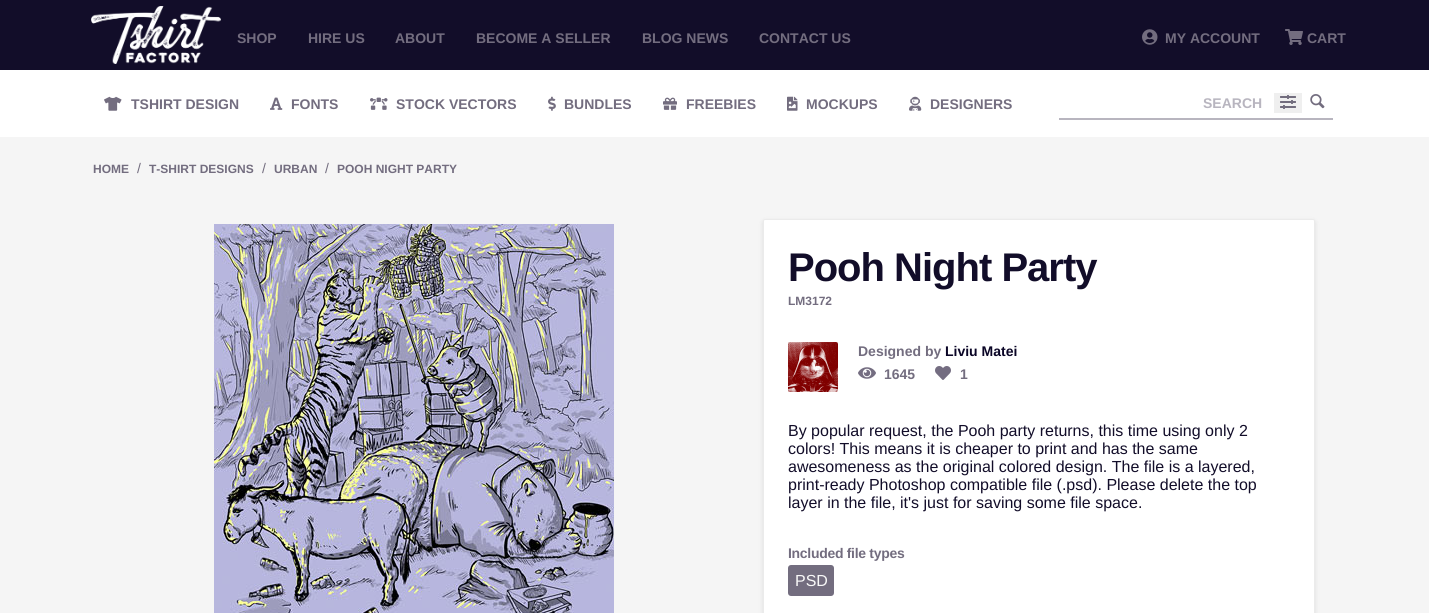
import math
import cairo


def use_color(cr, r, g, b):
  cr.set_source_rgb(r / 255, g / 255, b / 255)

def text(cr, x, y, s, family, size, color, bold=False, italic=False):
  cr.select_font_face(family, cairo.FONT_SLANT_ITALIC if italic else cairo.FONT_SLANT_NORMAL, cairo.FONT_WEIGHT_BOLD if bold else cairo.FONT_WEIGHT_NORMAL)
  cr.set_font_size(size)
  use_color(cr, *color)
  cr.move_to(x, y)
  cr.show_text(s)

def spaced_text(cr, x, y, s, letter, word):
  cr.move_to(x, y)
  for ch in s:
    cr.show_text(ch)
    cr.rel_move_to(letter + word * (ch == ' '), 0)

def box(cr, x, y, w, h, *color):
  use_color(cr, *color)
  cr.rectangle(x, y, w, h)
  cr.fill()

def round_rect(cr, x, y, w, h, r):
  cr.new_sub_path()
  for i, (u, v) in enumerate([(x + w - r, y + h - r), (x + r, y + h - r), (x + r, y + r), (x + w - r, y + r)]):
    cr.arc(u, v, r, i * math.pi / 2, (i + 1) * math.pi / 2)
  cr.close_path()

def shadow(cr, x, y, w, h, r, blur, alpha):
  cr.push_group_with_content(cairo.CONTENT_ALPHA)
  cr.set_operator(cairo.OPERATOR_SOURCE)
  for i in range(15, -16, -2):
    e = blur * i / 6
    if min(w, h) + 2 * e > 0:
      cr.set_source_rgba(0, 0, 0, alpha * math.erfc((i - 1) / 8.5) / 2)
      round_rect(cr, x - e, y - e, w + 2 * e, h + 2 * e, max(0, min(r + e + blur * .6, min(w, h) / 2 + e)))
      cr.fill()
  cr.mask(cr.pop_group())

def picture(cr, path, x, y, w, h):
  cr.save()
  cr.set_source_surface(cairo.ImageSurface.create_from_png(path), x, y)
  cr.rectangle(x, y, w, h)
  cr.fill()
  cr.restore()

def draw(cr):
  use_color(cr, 245, 245, 245)
  cr.paint()
  box(cr, 0, 0, 1429, 70, 18, 13, 41)
  picture(cr, "img_01.png", 91, 6, 130, 58)
  picture(cr, "img_02.png", 1142, 29, 16, 16)
  picture(cr, "img_03.png", 1285, 29, 18, 16)
  box(cr, 0, 70, 1429, 67, 255, 255, 255)
  picture(cr, "img_04.png", 104, 96, 18, 15)
  picture(cr, "img_05.png", 270, 97, 13, 13)
  picture(cr, "img_06.png", 370, 97, 18, 13)
  picture(cr, "img_07.png", 548, 96, 8, 15)
  picture(cr, "img_08.png", 663, 97, 14, 13)
  picture(cr, "img_09.png", 787, 96, 11, 15)
  picture(cr, "img_10.png", 909, 96, 13, 15)
  box(cr, 1059, 118, 274, 2, 184, 181, 191)
  box(cr, 1274, 93, 28, 20, 239, 239, 239)
  picture(cr, "img_11.png", 1280, 95, 16, 14)
  picture(cr, "img_12.png", 1310, 94, 15, 15)
  picture(cr, "img_13.png", 214, 224, 400, 389)
  use_color(cr, 0, 0, 0)
  shadow(cr, 763, 221, 552, 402, 2, 2.5, 0.1)
  use_color(cr, 255, 255, 255)
  round_rect(cr, 763.5, 219.5, 551, 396, 1.5)
  cr.fill_preserve()
  use_color(cr, 235, 235, 235)
  cr.set_line_width(1)
  cr.stroke()
  picture(cr, "img_14.png", 788, 342, 50, 50)
  picture(cr, "img_15.png", 858, 367, 18, 12)
  picture(cr, "img_16.png", 935, 366, 16, 14)
  use_color(cr, 115, 109, 127)
  round_rect(cr, 788, 565, 46, 31, 3)
  cr.fill()
  text(cr, 237, 43, "SHOP", "Liberation Sans", 14, (115, 109, 127), bold=True)
  text(cr, 308, 43, "HIRE US", "Liberation Sans", 14, (115, 109, 127), bold=True)
  text(cr, 395, 43, "ABOUT", "Liberation Sans", 14, (115, 109, 127), bold=True)
  text(cr, 476, 43, "BECOME A SELLER", "Liberation Sans", 14, (115, 109, 127), bold=True)
  text(cr, 642, 43, "BLOG NEWS", "Liberation Sans", 14, (115, 109, 127), bold=True)
  text(cr, 759, 43, "CONTACT US", "Liberation Sans", 14, (115, 109, 127), bold=True)
  text(cr, 1165, 43, "MY ACCOUNT", "Liberation Sans", 14, (115, 109, 127), bold=True)
  text(cr, 1307, 43, "CART", "Liberation Sans", 14, (115, 109, 127), bold=True)
  text(cr, 131, 109, "TSHIRT DESIGN", "Liberation Sans", 14, (115, 109, 127), bold=True)
  text(cr, 291, 109, "FONTS", "Liberation Sans", 14, (115, 109, 127), bold=True)
  text(cr, 396, 109, "STOCK VECTORS", "Liberation Sans", 14, (115, 109, 127), bold=True)
  text(cr, 564, 109, "BUNDLES", "Liberation Sans", 14, (115, 109, 127), bold=True)
  text(cr, 686, 109, "FREEBIES", "Liberation Sans", 14, (115, 109, 127), bold=True)
  text(cr, 806, 109, "MOCKUPS", "Liberation Sans", 14, (115, 109, 127), bold=True)
  text(cr, 930, 109, "DESIGNERS", "Liberation Sans", 14, (115, 109, 127), bold=True)
  text(cr, 1203, 108, "SEARCH", "Liberation Sans", 14, (184, 181, 191), bold=True)
  text(cr, 93, 173, "HOME", "Liberation Sans", 12, (115, 109, 127), bold=True)
  text(cr, 137, 173, "/", "Liberation Sans", 14, (115, 109, 127))
  text(cr, 149, 173, "T-SHIRT DESIGNS", "Liberation Sans", 12, (115, 109, 127), bold=True)
  text(cr, 262, 173, "/", "Liberation Sans", 14, (115, 109, 127))
  text(cr, 274, 173, "URBAN", "Liberation Sans", 12, (115, 109, 127), bold=True)
  text(cr, 325, 173, "/", "Liberation Sans", 14, (115, 109, 127))
  text(cr, 337, 173, "POOH NIGHT PARTY", "Liberation Sans", 12, (115, 109, 127), bold=True)
  cr.set_font_size(40)
  use_color(cr, 18, 13, 41)
  spaced_text(cr, 788, 281, "Pooh Night Party", -1, 0)
  text(cr, 788, 305, "LM3172", "Liberation Sans", 12, (115, 109, 127), bold=True)
  text(cr, 858, 356, "Designed by", "Liberation Sans", 14, (115, 109, 127), bold=True)
  text(cr, 945, 356, "Liviu Matei", "Liberation Sans", 14, (10, 5, 38), bold=True)
  text(cr, 884, 379, "1645", "Liberation Sans", 14, (115, 109, 127), bold=True)
  text(cr, 960, 379, "1", "Liberation Sans", 14, (115, 109, 127), bold=True)
  text(cr, 788, 436, "By popular request, the Pooh party returns, this time using only 2", "Liberation Sans", 16, (18, 13, 41))
  text(cr, 788, 454, "colors! This means it is cheaper to print and has the same", "Liberation Sans", 16, (18, 13, 41))
  text(cr, 788, 472, "awesomeness as the original colored design. The file is a layered,", "Liberation Sans", 16, (18, 13, 41))
  text(cr, 788, 490, "print-ready Photoshop compatible file (.psd). Please delete the top", "Liberation Sans", 16, (18, 13, 41))
  text(cr, 788, 508, "layer in the file, it's just for saving some file space.", "Liberation Sans", 16, (18, 13, 41))
  cr.select_font_face("Liberation Sans", cairo.FONT_SLANT_NORMAL, cairo.FONT_WEIGHT_BOLD)
  cr.set_font_size(14)
  use_color(cr, 115, 109, 127)
  spaced_text(cr, 788, 558, "Included file types", -0.3, 0)
  text(cr, 795, 586, "PSD", "Liberation Sans", 16, (248, 248, 248))


surface = cairo.ImageSurface(cairo.FORMAT_RGB24, 1429, 613)
cr = cairo.Context(surface)
options = cairo.FontOptions()
options.set_hint_metrics(cairo.HINT_METRICS_OFF)
options.set_hint_style(cairo.HINT_STYLE_NONE)
cr.set_font_options(options)
cr.set_miter_limit(4)
draw(cr)
surface.write_to_png("out.png")
